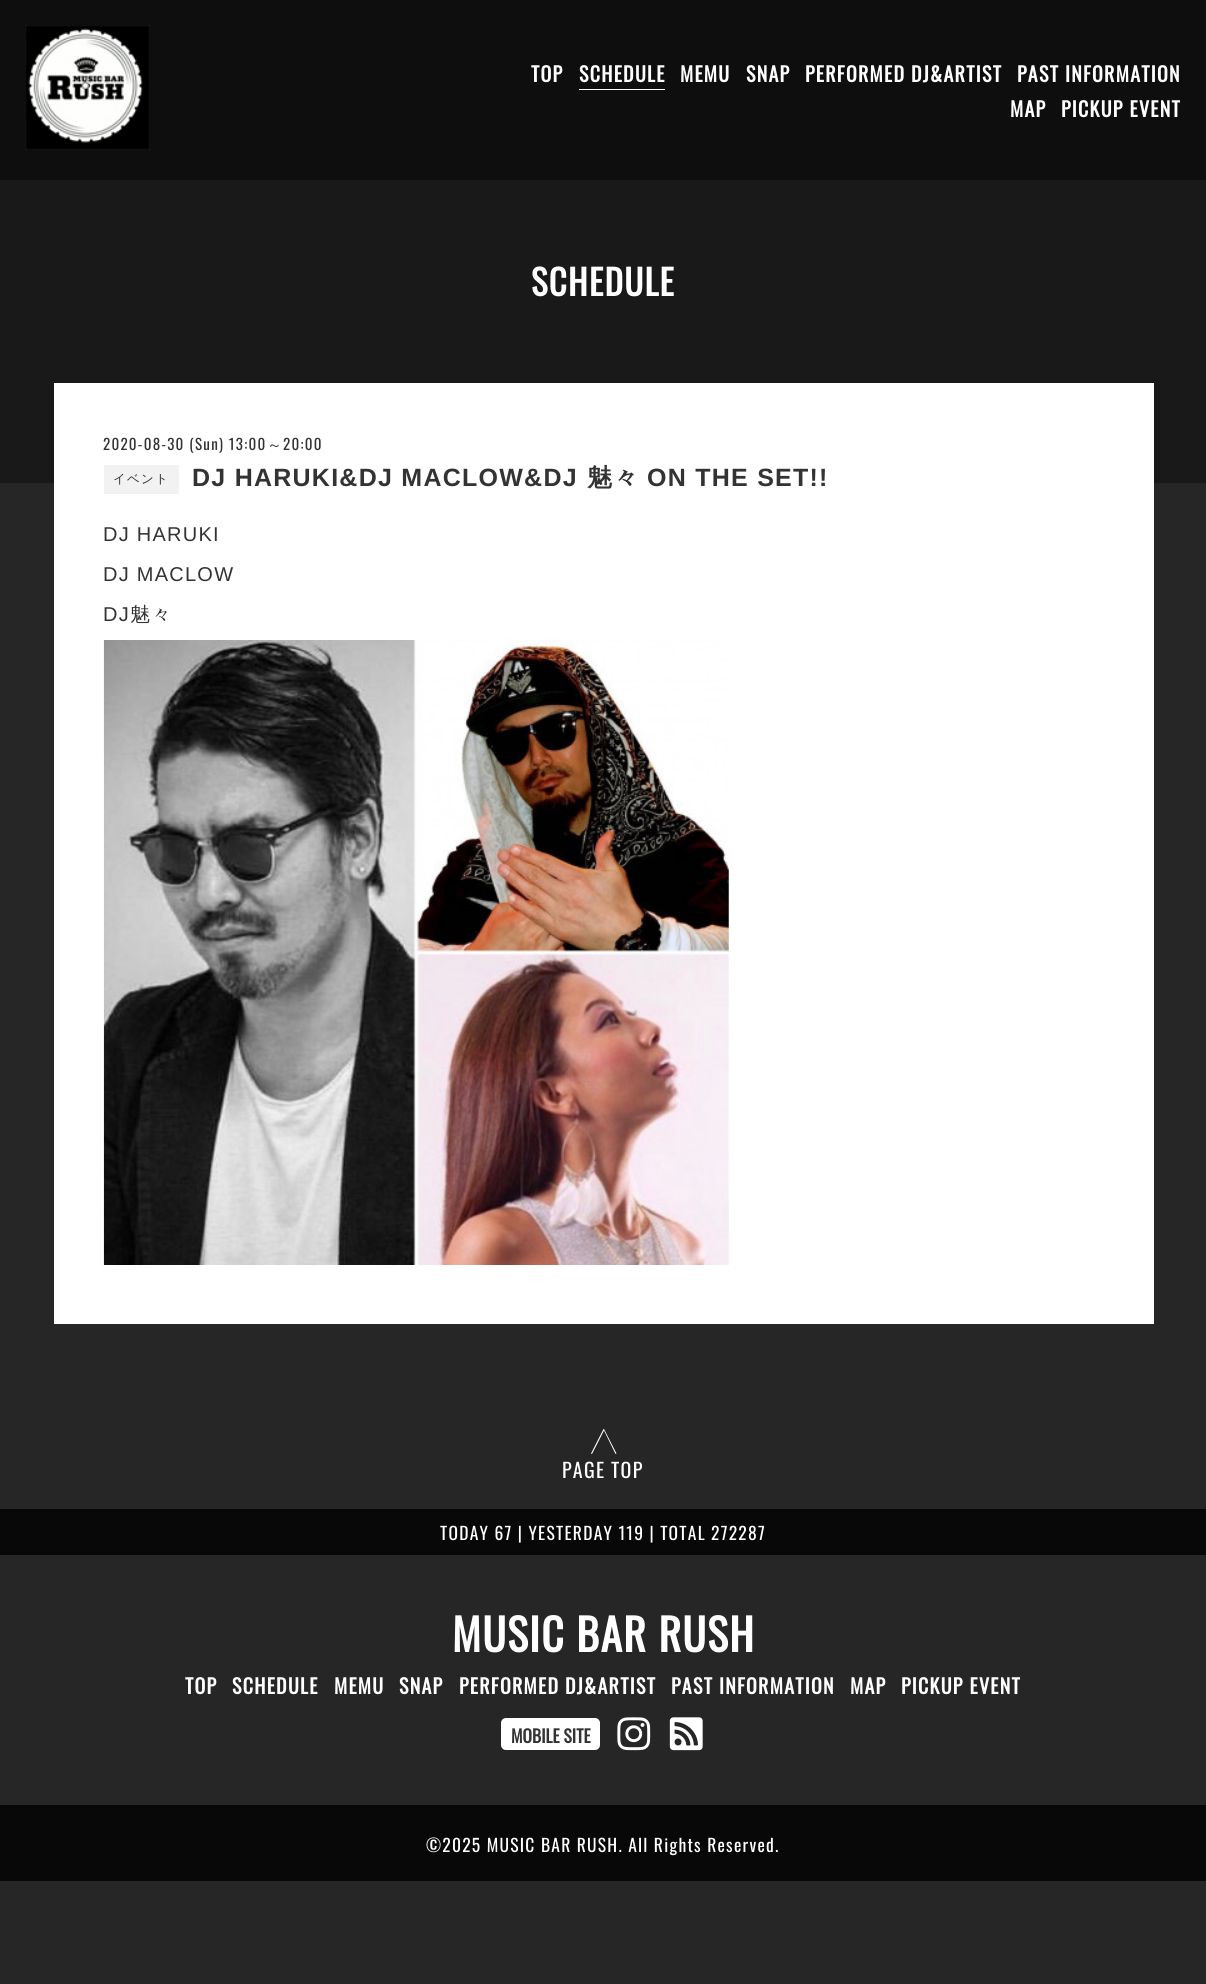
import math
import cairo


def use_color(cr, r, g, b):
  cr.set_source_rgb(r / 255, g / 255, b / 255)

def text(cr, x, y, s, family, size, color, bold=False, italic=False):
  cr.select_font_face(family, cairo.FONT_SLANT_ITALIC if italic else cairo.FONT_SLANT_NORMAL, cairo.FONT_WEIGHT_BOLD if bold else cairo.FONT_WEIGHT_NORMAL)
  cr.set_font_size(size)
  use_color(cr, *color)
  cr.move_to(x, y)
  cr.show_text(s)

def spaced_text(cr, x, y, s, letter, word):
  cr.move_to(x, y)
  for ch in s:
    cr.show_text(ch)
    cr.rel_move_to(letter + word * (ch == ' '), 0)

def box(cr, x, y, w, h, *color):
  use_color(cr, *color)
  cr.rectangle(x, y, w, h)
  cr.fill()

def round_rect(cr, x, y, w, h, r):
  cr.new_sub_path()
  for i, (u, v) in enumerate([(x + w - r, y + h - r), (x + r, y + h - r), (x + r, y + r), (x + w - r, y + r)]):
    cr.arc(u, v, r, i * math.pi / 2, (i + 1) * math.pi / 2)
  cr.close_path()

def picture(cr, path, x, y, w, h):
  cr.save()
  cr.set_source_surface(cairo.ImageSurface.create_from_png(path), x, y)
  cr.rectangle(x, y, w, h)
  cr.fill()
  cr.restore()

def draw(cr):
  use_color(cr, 38, 38, 38)
  cr.paint()
  box(cr, 0, 0, 1206, 180, 14, 14, 14)
  picture(cr, "img_01.png", 25, 25, 125, 125)
  box(cr, 579, 89, 86, 1, 255, 255, 255)
  box(cr, 0, 180, 1206, 303, 25, 25, 25)
  box(cr, 54, 383, 1100, 941, 255, 255, 255)
  box(cr, 104, 465, 75, 29, 242, 242, 242)
  picture(cr, "img_02.png", 103, 640, 626, 625)
  use_color(cr, 255, 255, 255)
  cr.new_path()
  cr.move_to(592, 1454)
  cr.line_to(591, 1453.5)
  cr.line_to(603.5, 1429)
  cr.line_to(604, 1429)
  cr.line_to(616.5, 1453.5)
  cr.line_to(615.5, 1454)
  cr.line_to(604, 1430.5)
  cr.close_path()
  cr.fill()
  box(cr, 0, 1509, 1206, 46, 8, 8, 8)
  use_color(cr, 255, 255, 255)
  round_rect(cr, 501, 1718, 99, 32, 5)
  cr.fill()
  picture(cr, "img_03.png", 617, 1717, 34, 34)
  picture(cr, "img_04.png", 669, 1717, 34, 34)
  box(cr, 0, 1805, 1206, 76, 8, 8, 8)
  cr.select_font_face("Oswald", cairo.FONT_SLANT_NORMAL, cairo.FONT_WEIGHT_BOLD)
  cr.set_font_size(20)
  use_color(cr, 255, 255, 255)
  spaced_text(cr, 531, 82, "TOP", 1.25, 0)
  spaced_text(cr, 579, 82, "SCHEDULE", 1.25, 0)
  spaced_text(cr, 680, 82, "MEMU", 1.25, 0)
  spaced_text(cr, 746, 82, "SNAP", 1.25, 0)
  spaced_text(cr, 805, 82, "PERFORMED DJ&ARTIST", 1.25, 0)
  spaced_text(cr, 1017, 82, "PAST INFORMATION", 1.25, 0)
  spaced_text(cr, 1010, 117, "MAP", 1.25, 0)
  spaced_text(cr, 1061, 117, "PICKUP EVENT", 1.25, 0)
  cr.set_font_size(35)
  spaced_text(cr, 531, 296, "SCHEDULE", 1.25, 0)
  cr.select_font_face("Oswald")
  cr.set_font_size(15)
  use_color(cr, 51, 51, 51)
  spaced_text(cr, 103, 450, "2020-08-30 (Sun) 13:00", 1.25, 0)
  cr.select_font_face("WenQuanYi Zen Hei Medium")
  spaced_text(cr, 267, 450, "～", 1.25, 0)
  cr.select_font_face("Oswald")
  spaced_text(cr, 283, 450, "20:00", 1.25, 0)
  cr.select_font_face("WenQuanYi Zen Hei Medium")
  cr.set_font_size(12.5)
  spaced_text(cr, 113, 483, "イベント", 1.25, 0)
  cr.select_font_face("Liberation Sans", cairo.FONT_SLANT_NORMAL, cairo.FONT_WEIGHT_BOLD)
  cr.set_font_size(25)
  spaced_text(cr, 192, 486, "DJ HARUKI&DJ MACLOW&DJ", 1.25, 0)
  cr.select_font_face("WenQuanYi Zen Hei", cairo.FONT_SLANT_NORMAL, cairo.FONT_WEIGHT_BOLD)
  spaced_text(cr, 587, 486, "魅々", 1.25, 0)
  cr.select_font_face("Liberation Sans", cairo.FONT_SLANT_NORMAL, cairo.FONT_WEIGHT_BOLD)
  spaced_text(cr, 647, 486, "ON THE SET!!", 1.25, 0)
  cr.select_font_face("Liberation Sans")
  cr.set_font_size(20)
  spaced_text(cr, 103, 541, "DJ HARUKI", 1.25, 0)
  spaced_text(cr, 103, 581, "DJ MACLOW", 1.25, 0)
  spaced_text(cr, 103, 621, "DJ", 1.25, 0)
  cr.select_font_face("WenQuanYi Zen Hei Medium")
  spaced_text(cr, 130, 621, "魅々", 1.25, 0)
  cr.select_font_face("Oswald")
  use_color(cr, 255, 255, 255)
  spaced_text(cr, 562, 1478, "PAGE TOP", 1.25, 0)
  cr.set_font_size(17.5)
  spaced_text(cr, 440, 1540, "TODAY 67 | YESTERDAY 119 | TOTAL 272287", 1.25, 0)
  cr.select_font_face("Oswald", cairo.FONT_SLANT_NORMAL, cairo.FONT_WEIGHT_BOLD)
  cr.set_font_size(43.75)
  spaced_text(cr, 452, 1652, "MUSIC BAR RUSH", 1.25, 0)
  cr.set_font_size(20)
  spaced_text(cr, 185, 1694, "TOP", 1.25, 0)
  spaced_text(cr, 232, 1694, "SCHEDULE", 1.25, 0)
  spaced_text(cr, 334, 1694, "MEMU", 1.25, 0)
  spaced_text(cr, 399, 1694, "SNAP", 1.25, 0)
  spaced_text(cr, 459, 1694, "PERFORMED DJ&ARTIST", 1.25, 0)
  spaced_text(cr, 671, 1694, "PAST INFORMATION", 1.25, 0)
  spaced_text(cr, 850, 1694, "MAP", 1.25, 0)
  spaced_text(cr, 901, 1694, "PICKUP EVENT", 1.25, 0)
  text(cr, 511, 1743, "MOBILE SITE", "Oswald", 17.5, (51, 51, 51), bold=True)
  cr.select_font_face("Oswald")
  use_color(cr, 255, 255, 255)
  spaced_text(cr, 426, 1852, "©2025 MUSIC BAR RUSH. All Rights Reserved.", 1.25, 0)


surface = cairo.ImageSurface(cairo.FORMAT_RGB24, 1206, 1984)
cr = cairo.Context(surface)
options = cairo.FontOptions()
options.set_hint_metrics(cairo.HINT_METRICS_OFF)
options.set_hint_style(cairo.HINT_STYLE_NONE)
cr.set_font_options(options)
cr.set_miter_limit(4)
draw(cr)
surface.write_to_png("out.png")
